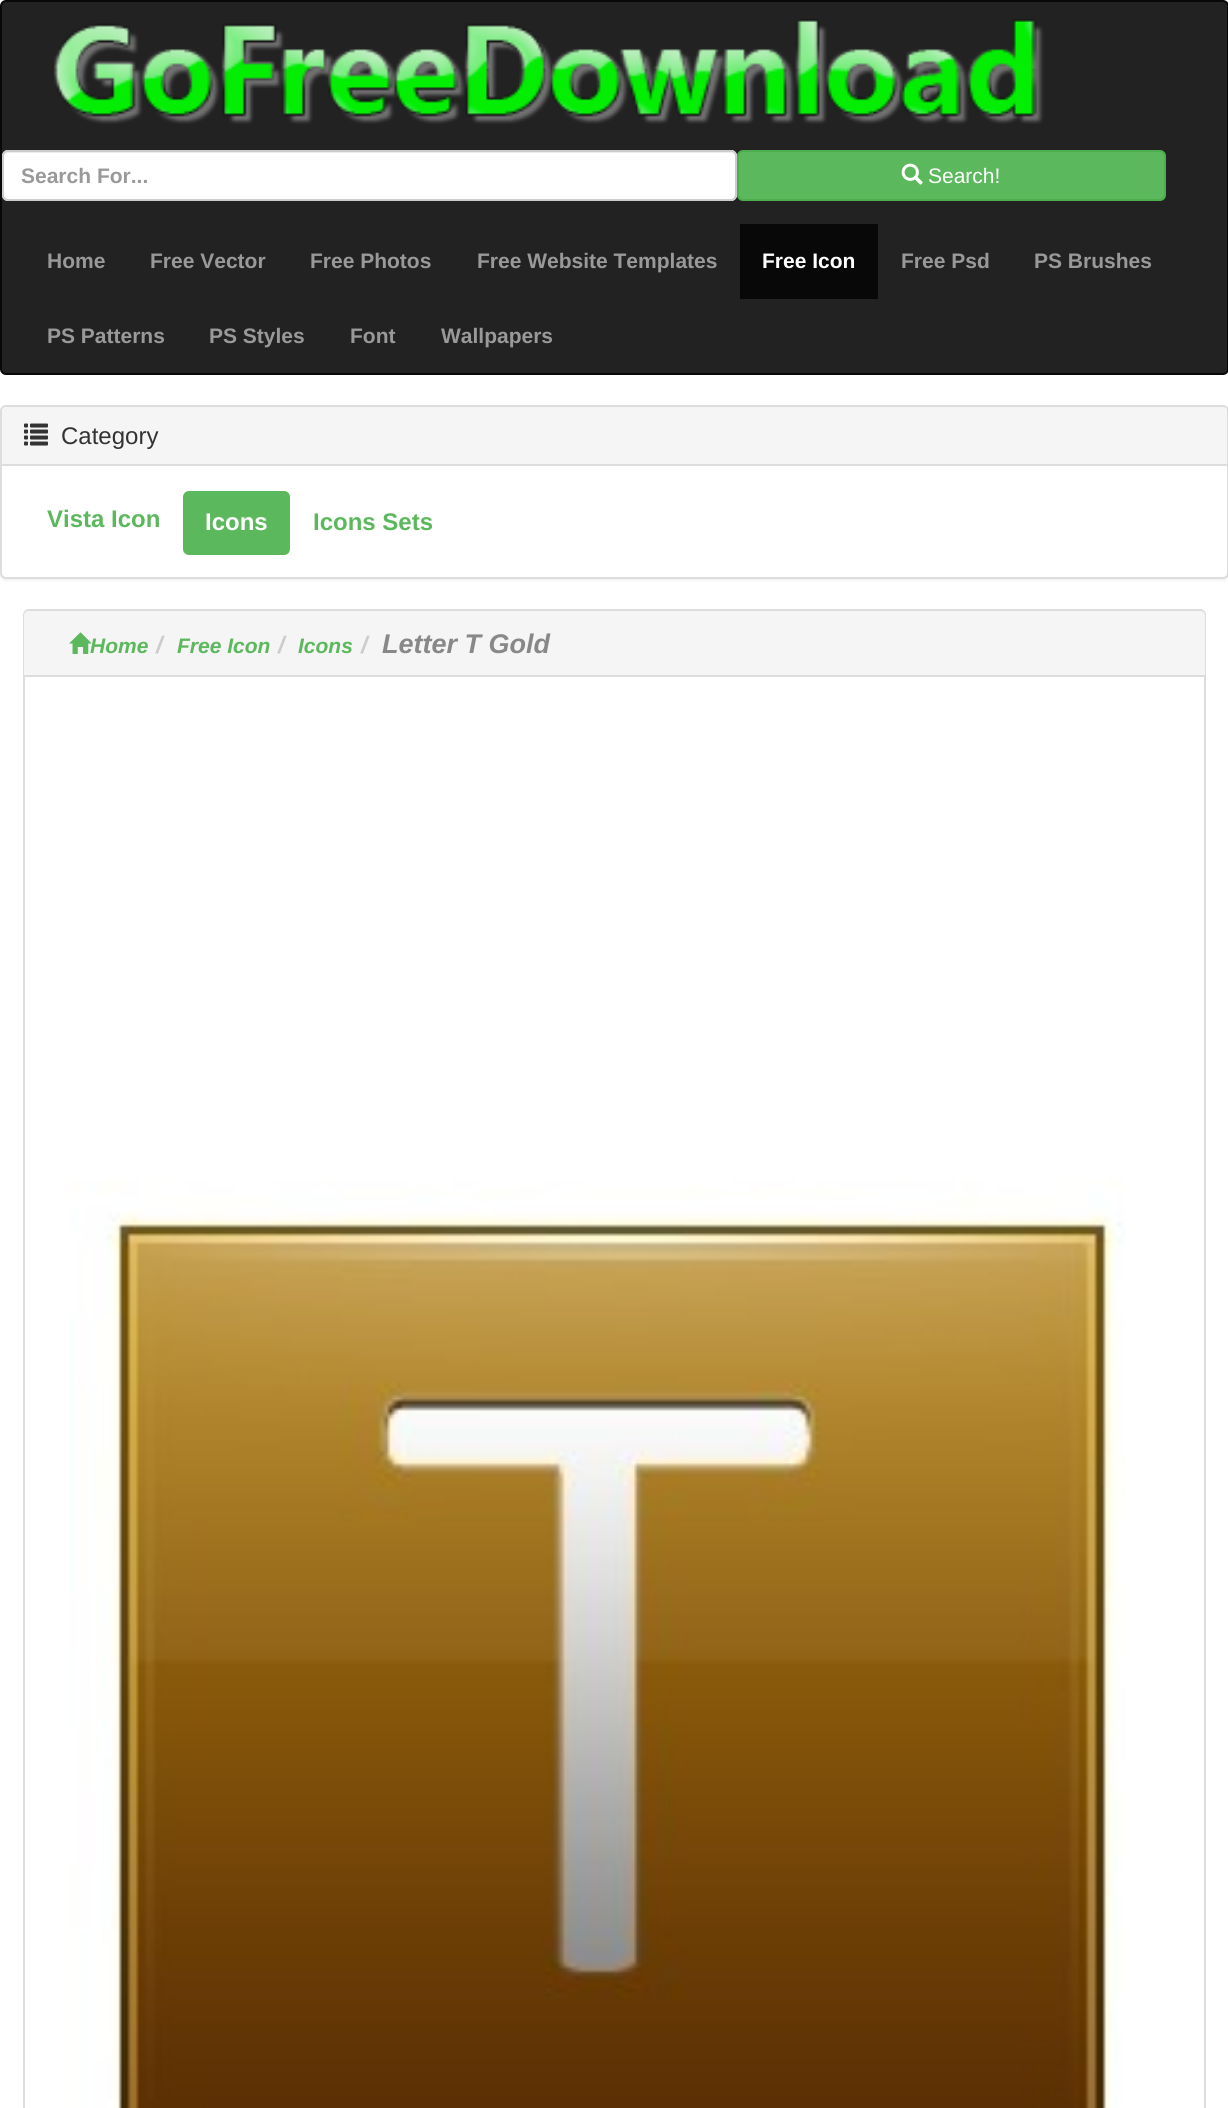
import math
import cairo


def use_color(cr, r, g, b):
  cr.set_source_rgb(r / 255, g / 255, b / 255)

def text(cr, x, y, s, family, size, color, bold=False, italic=False):
  cr.select_font_face(family, cairo.FONT_SLANT_ITALIC if italic else cairo.FONT_SLANT_NORMAL, cairo.FONT_WEIGHT_BOLD if bold else cairo.FONT_WEIGHT_NORMAL)
  cr.set_font_size(size)
  use_color(cr, *color)
  cr.move_to(x, y)
  cr.show_text(s)

def box(cr, x, y, w, h, *color):
  use_color(cr, *color)
  cr.rectangle(x, y, w, h)
  cr.fill()

def round_rect(cr, x, y, w, h, r):
  cr.new_sub_path()
  for i, (u, v) in enumerate([(x + w - r, y + h - r), (x + r, y + h - r), (x + r, y + r), (x + w - r, y + r)]):
    cr.arc(u, v, r, i * math.pi / 2, (i + 1) * math.pi / 2)
  cr.close_path()

def shadow(cr, x, y, w, h, r, blur, alpha):
  cr.push_group_with_content(cairo.CONTENT_ALPHA)
  cr.set_operator(cairo.OPERATOR_SOURCE)
  for i in range(15, -16, -2):
    e = blur * i / 6
    if min(w, h) + 2 * e > 0:
      cr.set_source_rgba(0, 0, 0, alpha * math.erfc((i - 1) / 8.5) / 2)
      round_rect(cr, x - e, y - e, w + 2 * e, h + 2 * e, max(0, min(r + e + blur * .6, min(w, h) / 2 + e)))
      cr.fill()
  cr.mask(cr.pop_group())

def picture(cr, path, x, y, w, h):
  cr.save()
  cr.set_source_surface(cairo.ImageSurface.create_from_png(path), x, y)
  cr.rectangle(x, y, w, h)
  cr.fill()
  cr.restore()

def draw(cr):
  use_color(cr, 255, 255, 255)
  cr.paint()
  use_color(cr, 34, 34, 34)
  round_rect(cr, 1, 1, 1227, 373, 5)
  cr.fill_preserve()
  use_color(cr, 8, 8, 8)
  cr.stroke()
  picture(cr, "img_01.png", 53, 19, 991, 105)
  use_color(cr, 255, 255, 255)
  round_rect(cr, 2, 150, 735, 51, 6)
  cr.fill()
  use_color(cr, 236, 236, 236)
  cr.new_path()
  cr.move_to(8, 153)
  cr.line_to(730, 153)
  cr.curve_to(733, 153, 735, 155, 735, 158)
  cr.curve_to(735, 155, 733, 152, 730, 152)
  cr.line_to(8, 152)
  cr.curve_to(5, 152, 3, 155, 3, 158)
  cr.curve_to(3, 155, 5, 153, 8, 153)
  cr.close_path()
  cr.fill()
  round_rect(cr, 3, 151, 733, 49, 5)
  use_color(cr, 204, 204, 204)
  cr.stroke()
  use_color(cr, 92, 184, 92)
  round_rect(cr, 738, 151, 427, 49, 5)
  cr.fill_preserve()
  use_color(cr, 76, 174, 76)
  cr.stroke()
  picture(cr, "img_02.png", 901, 163, 22, 22)
  box(cr, 740, 224, 138, 75, 8, 8, 8)
  use_color(cr, 0, 0, 0)
  shadow(cr, 0, 407, 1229, 174, 6, 1, 0.05)
  use_color(cr, 255, 255, 255)
  round_rect(cr, 1, 406, 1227, 172, 5)
  cr.fill_preserve()
  use_color(cr, 221, 221, 221)
  cr.stroke()
  use_color(cr, 245, 245, 245)
  cr.new_path()
  cr.move_to(7, 407)
  cr.line_to(1222, 407)
  cr.curve_to(1225, 407, 1227, 409, 1227, 412)
  cr.line_to(1227, 465)
  cr.line_to(2, 465)
  cr.line_to(2, 412)
  cr.curve_to(2, 409, 4, 407, 7, 407)
  cr.close_path()
  cr.fill()
  box(cr, 2, 464, 1225, 2, 221, 221, 221)
  picture(cr, "img_03.png", 24, 423, 24, 23)
  use_color(cr, 92, 184, 92)
  round_rect(cr, 183, 491, 107, 64, 6)
  cr.fill()
  round_rect(cr, 24, 610, 1181, 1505, 5)
  use_color(cr, 221, 221, 221)
  cr.stroke()
  use_color(cr, 245, 245, 245)
  cr.new_path()
  cr.move_to(29, 611)
  cr.line_to(1200, 611)
  cr.curve_to(1203, 611, 1205, 613, 1205, 616)
  cr.line_to(1205, 677)
  cr.line_to(24, 677)
  cr.line_to(24, 616)
  cr.curve_to(24, 613, 26, 611, 29, 611)
  cr.close_path()
  cr.fill()
  box(cr, 24, 675, 1181, 2, 221, 221, 221)
  picture(cr, "img_05.png", 69, 1179, 1056, 929)
  text(cr, 21, 183, "Search For...", "Liberation Sans", 21, (153, 153, 153), bold=True)
  text(cr, 928, 183, "Search!", "Liberation Sans", 21, (255, 255, 255))
  text(cr, 47, 268, "Home", "Liberation Sans", 21, (153, 153, 153), bold=True)
  text(cr, 150, 268, "Free Vector", "Liberation Sans", 21, (153, 153, 153), bold=True)
  text(cr, 310, 268, "Free Photos", "Liberation Sans", 21, (153, 153, 153), bold=True)
  text(cr, 477, 268, "Free Website Templates", "Liberation Sans", 21, (153, 153, 153), bold=True)
  text(cr, 762, 268, "Free Icon", "Liberation Sans", 21, (255, 255, 255), bold=True)
  text(cr, 901, 268, "Free Psd", "Liberation Sans", 21, (153, 153, 153), bold=True)
  text(cr, 1034, 268, "PS Brushes", "Liberation Sans", 21, (153, 153, 153), bold=True)
  text(cr, 47, 343, "PS Patterns", "Liberation Sans", 21, (153, 153, 153), bold=True)
  text(cr, 209, 343, "PS Styles", "Liberation Sans", 21, (153, 153, 153), bold=True)
  text(cr, 350, 343, "Font", "Liberation Sans", 21, (153, 153, 153), bold=True)
  text(cr, 441, 343, "Wallpapers", "Liberation Sans", 21, (153, 153, 153), bold=True)
  text(cr, 61, 444, "Category", "Liberation Sans", 24, (51, 51, 51))
  text(cr, 47, 527, "Vista Icon", "Liberation Sans", 24, (92, 184, 92), bold=True)
  text(cr, 205, 530, "Icons", "Liberation Sans", 24, (255, 255, 255), bold=True)
  text(cr, 313, 530, "Icons Sets", "Liberation Sans", 24, (92, 184, 92), bold=True)
  text(cr, 90, 653, "Home", "Liberation Sans", 21, (92, 184, 92), bold=True, italic=True)
  picture(cr, "img_04.png", 69, 632, 23, 22)
  text(cr, 156, 653, "/", "Liberation Sans", 24, (204, 204, 204), bold=True, italic=True)
  text(cr, 177, 653, "Free Icon", "Liberation Sans", 21, (92, 184, 92), bold=True, italic=True)
  text(cr, 278, 653, "/", "Liberation Sans", 24, (204, 204, 204), bold=True, italic=True)
  text(cr, 298, 653, "Icons", "Liberation Sans", 21, (92, 184, 92), bold=True, italic=True)
  text(cr, 361, 653, "/", "Liberation Sans", 24, (204, 204, 204), bold=True, italic=True)
  text(cr, 382, 653, "Letter T Gold", "Liberation Sans", 27, (136, 136, 136), bold=True, italic=True)


surface = cairo.ImageSurface(cairo.FORMAT_RGB24, 1228, 2108)
cr = cairo.Context(surface)
options = cairo.FontOptions()
options.set_hint_metrics(cairo.HINT_METRICS_OFF)
options.set_hint_style(cairo.HINT_STYLE_NONE)
cr.set_font_options(options)
cr.set_miter_limit(4)
draw(cr)
surface.write_to_png("out.png")
